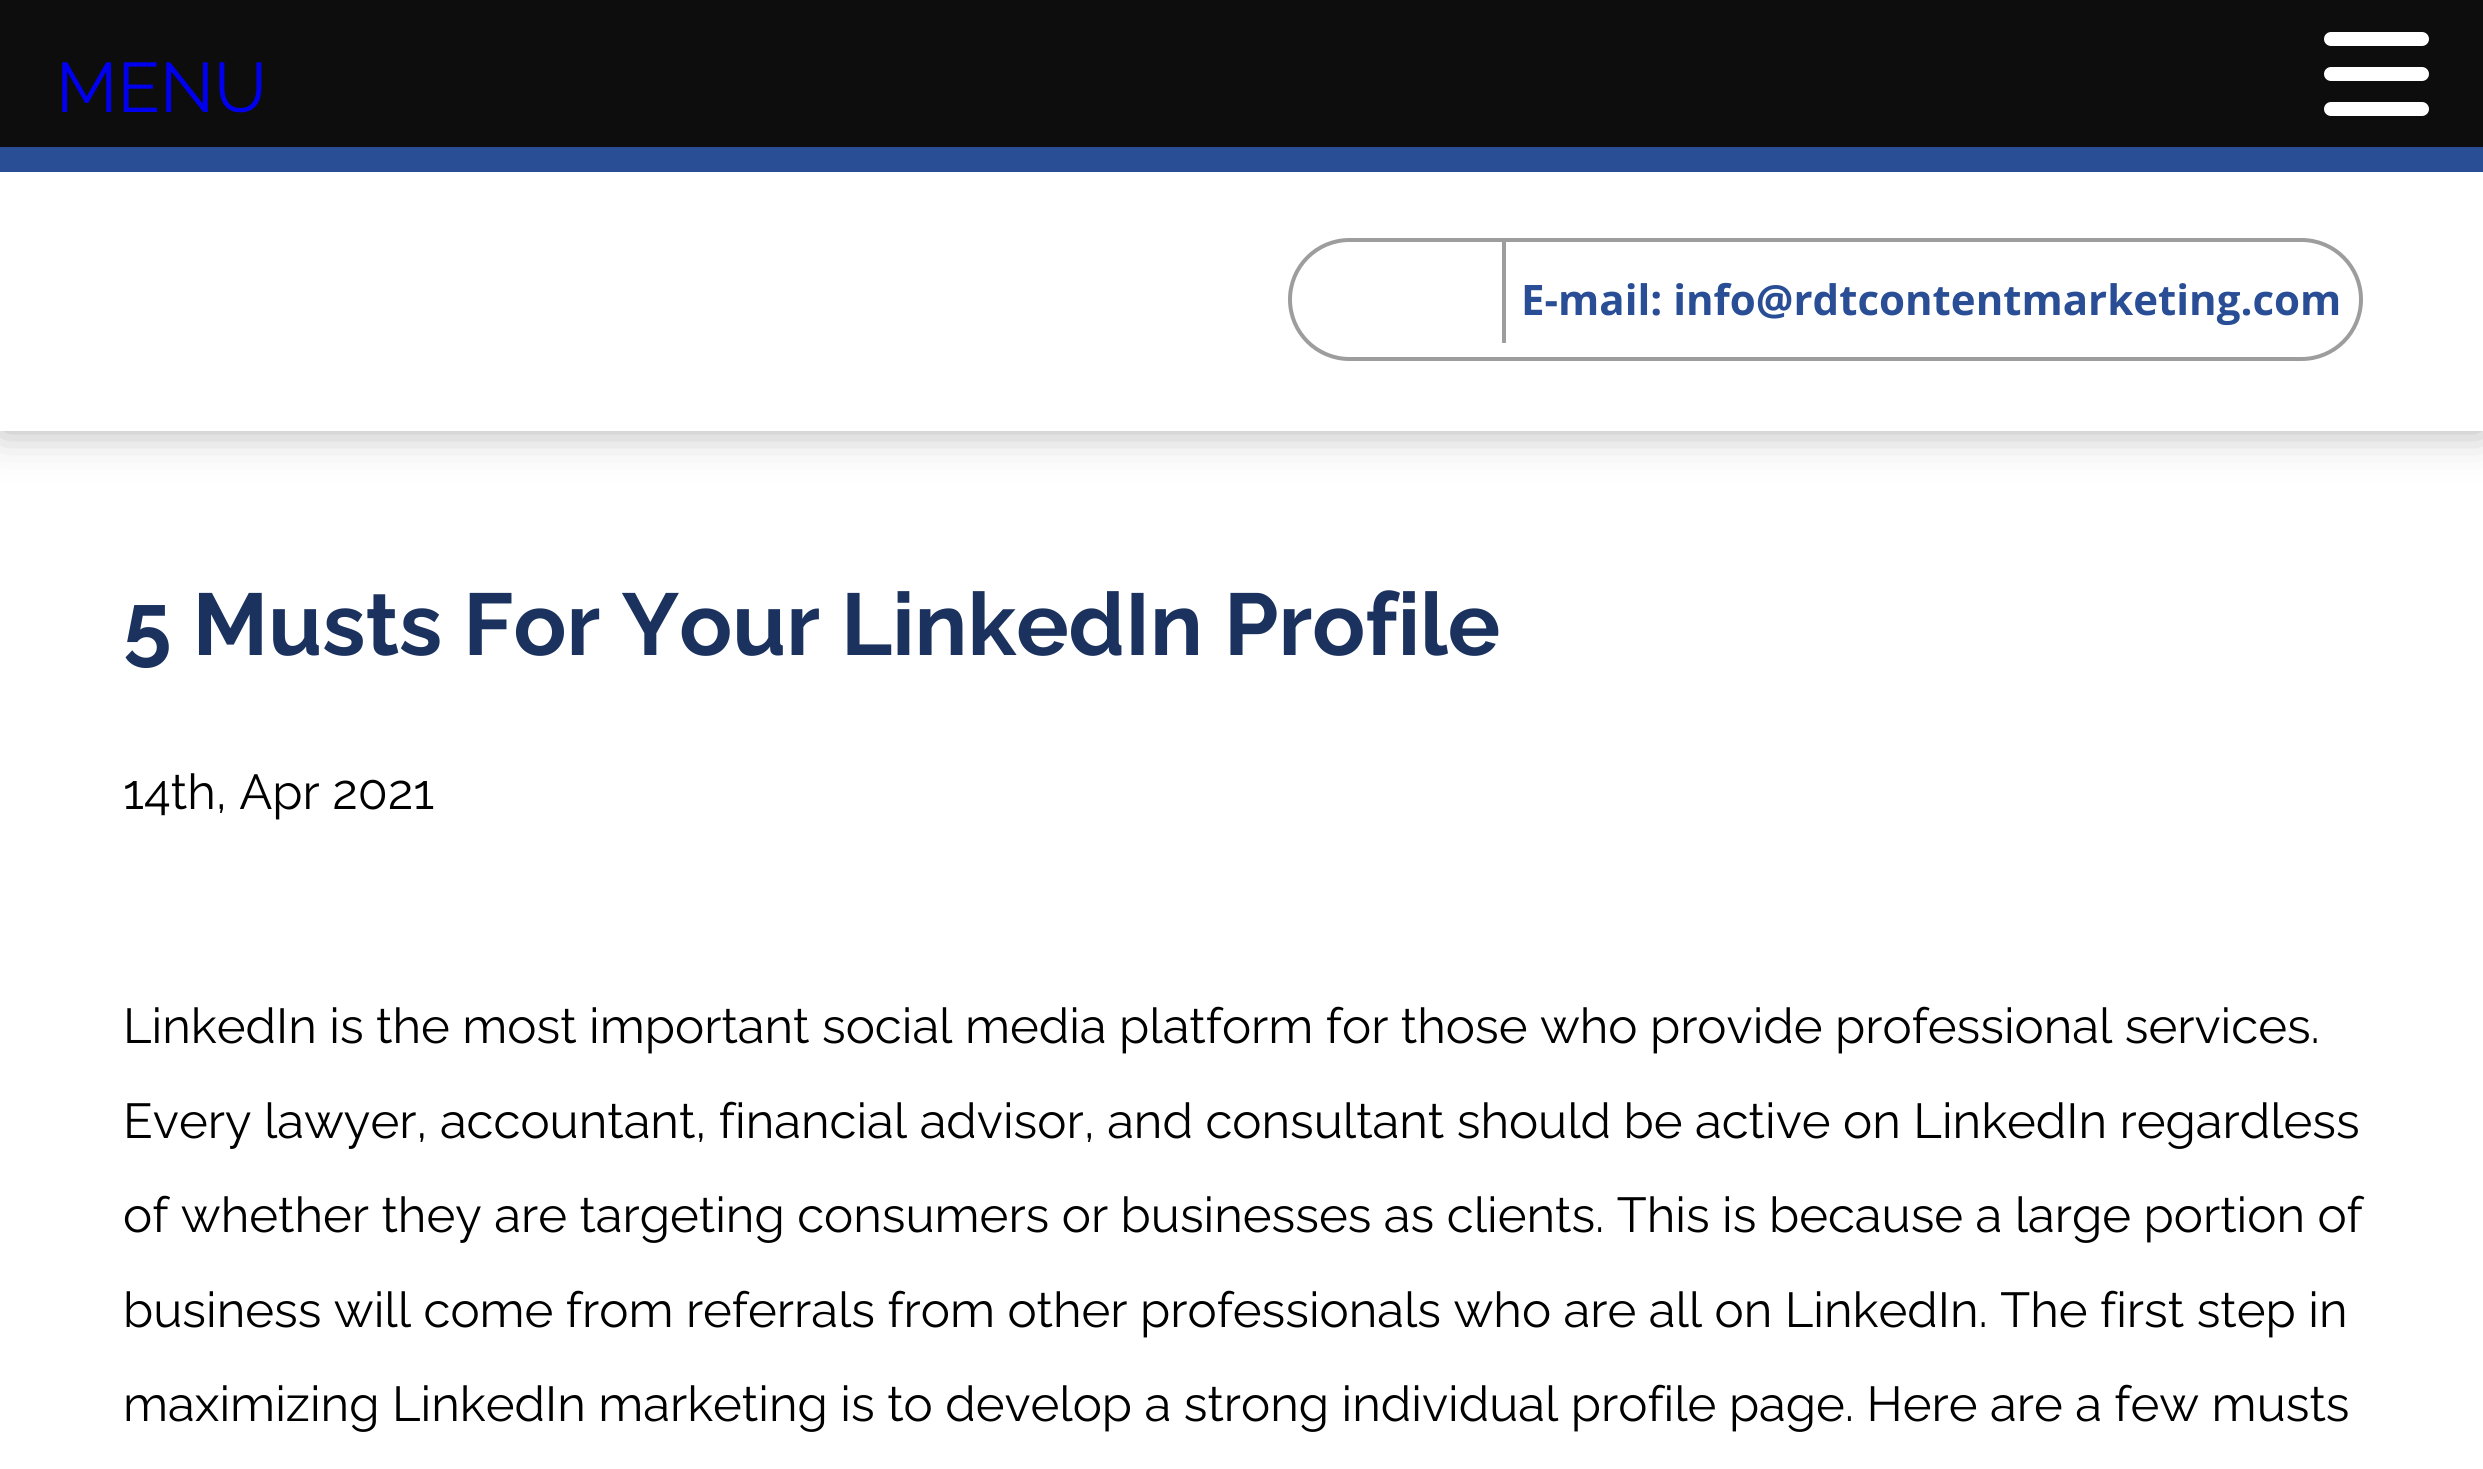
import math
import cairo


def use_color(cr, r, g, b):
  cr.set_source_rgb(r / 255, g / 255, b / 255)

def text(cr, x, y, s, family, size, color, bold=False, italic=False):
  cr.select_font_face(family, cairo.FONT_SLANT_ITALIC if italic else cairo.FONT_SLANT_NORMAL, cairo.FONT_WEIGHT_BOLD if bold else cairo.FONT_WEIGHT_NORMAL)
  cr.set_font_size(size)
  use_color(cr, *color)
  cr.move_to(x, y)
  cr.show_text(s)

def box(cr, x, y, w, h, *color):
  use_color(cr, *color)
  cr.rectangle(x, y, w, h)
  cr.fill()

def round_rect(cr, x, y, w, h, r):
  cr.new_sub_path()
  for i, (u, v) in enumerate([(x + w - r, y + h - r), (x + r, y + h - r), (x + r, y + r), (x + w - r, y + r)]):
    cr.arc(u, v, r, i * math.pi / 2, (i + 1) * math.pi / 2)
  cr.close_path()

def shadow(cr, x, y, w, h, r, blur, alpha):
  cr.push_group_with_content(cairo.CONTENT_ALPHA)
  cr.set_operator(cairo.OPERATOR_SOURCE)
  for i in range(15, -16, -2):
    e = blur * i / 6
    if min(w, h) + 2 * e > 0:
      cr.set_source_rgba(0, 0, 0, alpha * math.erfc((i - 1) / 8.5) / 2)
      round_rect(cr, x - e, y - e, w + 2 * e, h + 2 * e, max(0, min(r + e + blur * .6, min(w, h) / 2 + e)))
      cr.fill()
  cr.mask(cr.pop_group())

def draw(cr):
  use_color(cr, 255, 255, 255)
  cr.paint()
  cr.save()
  cr.set_fill_rule(cairo.FILL_RULE_EVEN_ODD)
  cr.new_path()
  cr.move_to(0, 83)
  cr.line_to(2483, 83)
  cr.line_to(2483, 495)
  cr.line_to(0, 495)
  cr.close_path()
  cr.move_to(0, 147)
  cr.line_to(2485, 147)
  cr.line_to(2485, 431)
  cr.line_to(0, 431)
  cr.close_path()
  cr.clip()
  use_color(cr, 176, 176, 176)
  shadow(cr, 0, 147, 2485, 284, 0, 21, 1)
  cr.restore()
  box(cr, 0, 0, 2483, 147, 13, 13, 13)
  use_color(cr, 255, 255, 255)
  round_rect(cr, 2324, 32, 105, 14, 7)
  cr.fill()
  round_rect(cr, 2324, 67, 105, 14, 7)
  cr.fill()
  round_rect(cr, 2324, 102, 105, 14, 7)
  cr.fill()
  box(cr, 0, 147, 2483, 25, 41, 78, 149)
  round_rect(cr, 1290, 240, 1071, 119, 59.5)
  use_color(cr, 158, 157, 157)
  cr.set_line_width(4)
  cr.stroke()
  box(cr, 1502, 242, 4, 101, 158, 157, 157)
  text(cr, 56, 112, "MENU", "Raleway", 70, (0, 0, 238))
  text(cr, 1521, 315, "E-mail: info@rdtcontentmarketing.com", "Open Sans", 42, (41, 78, 149), bold=True)
  text(cr, 123, 655, "5 Musts For Your LinkedIn Profile", "Raleway", 87.5, (27, 50, 94), bold=True)
  text(cr, 123, 809, "14th, Apr 2021", "Raleway", 49, (0, 0, 0))
  text(cr, 123, 1043, "LinkedIn is the most important social media platform for those who provide professional services.", "Raleway", 49, (0, 0, 0))
  text(cr, 123, 1138, "Every lawyer, accountant, financial advisor, and consultant should be active on LinkedIn regardless", "Raleway", 49, (0, 0, 0))
  text(cr, 123, 1232, "of whether they are targeting consumers or businesses as clients. This is because a large portion of", "Raleway", 49, (0, 0, 0))
  text(cr, 123, 1327, "business will come from referrals from other professionals who are all on LinkedIn. The first step in", "Raleway", 49, (0, 0, 0))
  text(cr, 123, 1421, "maximizing LinkedIn marketing is to develop a strong individual profile page. Here are a few musts", "Raleway", 49, (0, 0, 0))


surface = cairo.ImageSurface(cairo.FORMAT_RGB24, 2483, 1469)
cr = cairo.Context(surface)
options = cairo.FontOptions()
options.set_hint_metrics(cairo.HINT_METRICS_OFF)
options.set_hint_style(cairo.HINT_STYLE_NONE)
cr.set_font_options(options)
cr.set_miter_limit(4)
draw(cr)
surface.write_to_png("out.png")
